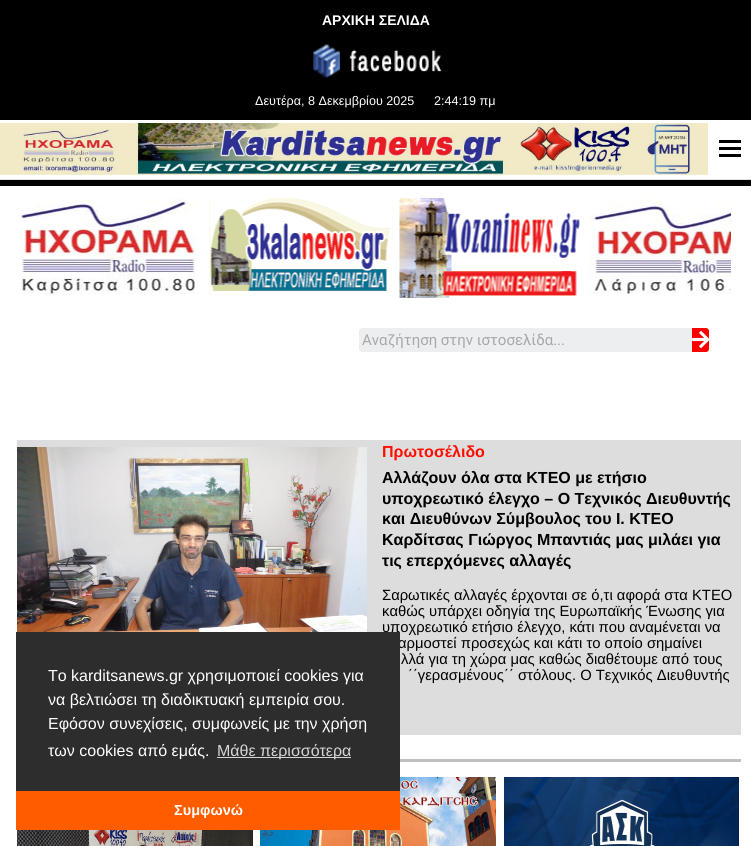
import math
import cairo


def use_color(cr, r, g, b):
  cr.set_source_rgb(r / 255, g / 255, b / 255)

def text(cr, x, y, s, family, size, color, bold=False, italic=False):
  cr.select_font_face(family, cairo.FONT_SLANT_ITALIC if italic else cairo.FONT_SLANT_NORMAL, cairo.FONT_WEIGHT_BOLD if bold else cairo.FONT_WEIGHT_NORMAL)
  cr.set_font_size(size)
  use_color(cr, *color)
  cr.move_to(x, y)
  cr.show_text(s)

def box(cr, x, y, w, h, *color):
  use_color(cr, *color)
  cr.rectangle(x, y, w, h)
  cr.fill()

def round_rect(cr, x, y, w, h, r):
  cr.new_sub_path()
  for i, (u, v) in enumerate([(x + w - r, y + h - r), (x + r, y + h - r), (x + r, y + r), (x + w - r, y + r)]):
    cr.arc(u, v, r, i * math.pi / 2, (i + 1) * math.pi / 2)
  cr.close_path()

def picture(cr, path, x, y, w, h):
  cr.save()
  cr.set_source_surface(cairo.ImageSurface.create_from_png(path), x, y)
  cr.rectangle(x, y, w, h)
  cr.fill()
  cr.restore()

def draw(cr):
  use_color(cr, 255, 255, 255)
  cr.paint()
  box(cr, 0, 179, 751, 1, 225, 225, 225)
  box(cr, 0, 0, 751, 120, 0, 0, 0)
  picture(cr, "img_01.png", 313, 44, 129, 34)
  picture(cr, "img_02.png", 0, 123, 708, 52)
  box(cr, 719, 147, 22, 3, 0, 0, 0)
  box(cr, 719, 140, 22, 3, 0, 0, 0)
  box(cr, 719, 154, 22, 3, 0, 0, 0)
  box(cr, 0, 180, 751, 6, 0, 0, 0)
  picture(cr, "img_03.png", 20, 198, 176, 96)
  picture(cr, "img_04.png", 209, 198, 181, 100)
  picture(cr, "img_05.png", 399, 198, 181, 100)
  picture(cr, "img_06.png", 589, 198, 142, 96)
  use_color(cr, 236, 238, 239)
  round_rect(cr, 359, 328, 350, 24, 3)
  cr.fill()
  use_color(cr, 255, 0, 0)
  cr.new_path()
  cr.move_to(692, 328)
  cr.line_to(706, 328)
  cr.curve_to(707.5, 328, 709, 329.5, 709, 331)
  cr.line_to(709, 349)
  cr.curve_to(709, 350.5, 707.5, 352, 706, 352)
  cr.line_to(692, 352)
  cr.close_path()
  cr.fill()
  picture(cr, "img_07.png", 692, 331, 17, 17)
  box(cr, 17, 440, 724, 295, 221, 221, 221)
  picture(cr, "img_08.png", 17, 447, 350, 185)
  box(cr, 400, 759, 341, 3, 192, 192, 192)
  picture(cr, "img_09.png", 17, 830, 236, 16)
  picture(cr, "img_10.png", 260, 777, 236, 69)
  picture(cr, "img_11.png", 504, 777, 235, 69)
  box(cr, 16, 791, 384, 39, 255, 92, 0)
  text(cr, 322, 25, "ΑΡΧΙΚΗ ΣΕΛΙΔΑ", "Liberation Sans", 14, (255, 255, 255), bold=True)
  text(cr, 255, 105, "Δευτέρα, 8 Δεκεμβρίου 2025", "Liberation Sans", 12.6, (255, 255, 255))
  text(cr, 434, 105, "2:44:19 πμ", "Liberation Sans", 12.6, (255, 255, 255))
  text(cr, 362, 345, "Αναζήτηση στην ιστοσελίδα...", "Roboto", 15, (168, 168, 169))
  text(cr, 382, 457, "Πρωτοσέλιδο", "Liberation Sans", 16, (255, 14, 0), bold=True)
  text(cr, 382, 483, "Αλλάζουν όλα στα ΚΤΕΟ με ετήσιο", "Liberation Sans", 16, (0, 0, 0), bold=True)
  text(cr, 382, 504, "υποχρεωτικό έλεγχο – Ο Τεχνικός Διευθυντής", "Liberation Sans", 16, (0, 0, 0), bold=True)
  text(cr, 382, 524, "και Διευθύνων Σύμβουλος του Ι. ΚΤΕΟ", "Liberation Sans", 16, (0, 0, 0), bold=True)
  text(cr, 382, 545, "Καρδίτσας Γιώργος Μπαντιάς μας μιλάει για", "Liberation Sans", 16, (0, 0, 0), bold=True)
  text(cr, 382, 566, "τις επερχόμενες αλλαγές", "Liberation Sans", 16, (0, 0, 0), bold=True)
  text(cr, 382, 600, "Σαρωτικές αλλαγές έρχονται σε ό,τι αφορά στα ΚΤΕΟ", "Liberation Sans", 14.8, (0, 0, 0))
  text(cr, 382, 616, "καθώς υπάρχει οδηγία της Ευρωπαϊκής Ένωσης για", "Liberation Sans", 14.8, (0, 0, 0))
  text(cr, 382, 632, "υποχρεωτικό ετήσιο έλεγχο, κάτι που αναμένεται να", "Liberation Sans", 14.8, (0, 0, 0))
  text(cr, 398, 648, "αρμοστεί προσεχώς και κάτι το οποίο σημαίνει", "Liberation Sans", 14.8, (0, 0, 0))
  text(cr, 401, 664, "λλά για τη χώρα μας καθώς διαθέτουμε από τους", "Liberation Sans", 14.8, (0, 0, 0))
  text(cr, 408, 680, "΄΄γερασμένους΄΄ στόλους. Ο Τεχνικός Διευθυντής", "Liberation Sans", 14.8, (0, 0, 0))
  box(cr, 16, 632, 384, 159, 45, 45, 45)
  text(cr, 48, 681, "Το karditsanews.gr χρησιμοποιεί cookies για", "Liberation Sans", 16, (255, 255, 255))
  text(cr, 48, 705, "να βελτιώσει τη διαδικτυακή εμπειρία σου.", "Liberation Sans", 16, (255, 255, 255))
  text(cr, 48, 729, "Εφόσον συνεχίσεις, συμφωνείς με την χρήση", "Liberation Sans", 16, (255, 255, 255))
  text(cr, 48, 756, "των cookies από εμάς.", "Liberation Sans", 16, (255, 255, 255))
  box(cr, 217, 757, 134, 1, 213, 213, 213)
  text(cr, 217, 756, "Μάθε περισσότερα", "Liberation Sans", 16, (213, 213, 213))
  text(cr, 174, 815, "Συμφωνώ", "Liberation Sans", 14.5, (255, 255, 255), bold=True)


surface = cairo.ImageSurface(cairo.FORMAT_RGB24, 751, 846)
cr = cairo.Context(surface)
options = cairo.FontOptions()
options.set_hint_metrics(cairo.HINT_METRICS_OFF)
options.set_hint_style(cairo.HINT_STYLE_NONE)
cr.set_font_options(options)
cr.set_miter_limit(4)
draw(cr)
surface.write_to_png("out.png")
